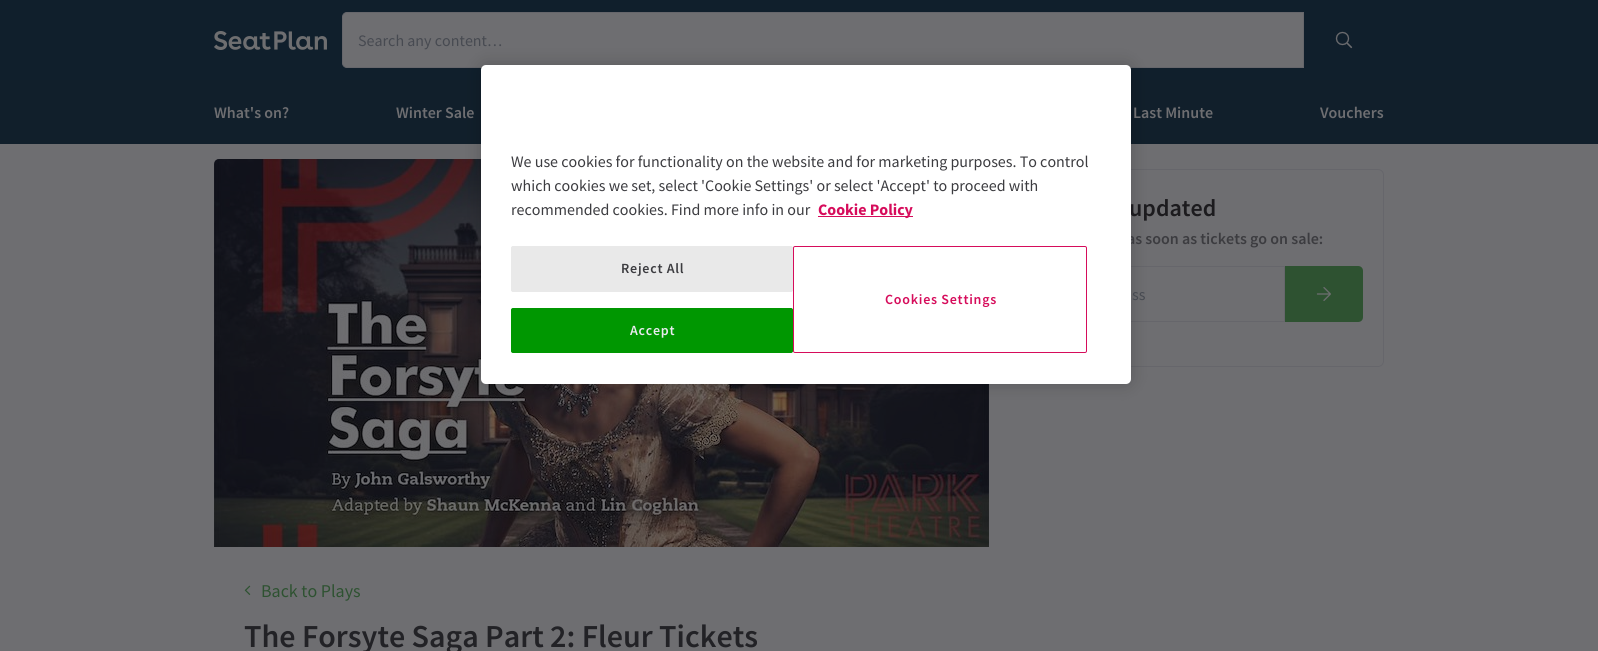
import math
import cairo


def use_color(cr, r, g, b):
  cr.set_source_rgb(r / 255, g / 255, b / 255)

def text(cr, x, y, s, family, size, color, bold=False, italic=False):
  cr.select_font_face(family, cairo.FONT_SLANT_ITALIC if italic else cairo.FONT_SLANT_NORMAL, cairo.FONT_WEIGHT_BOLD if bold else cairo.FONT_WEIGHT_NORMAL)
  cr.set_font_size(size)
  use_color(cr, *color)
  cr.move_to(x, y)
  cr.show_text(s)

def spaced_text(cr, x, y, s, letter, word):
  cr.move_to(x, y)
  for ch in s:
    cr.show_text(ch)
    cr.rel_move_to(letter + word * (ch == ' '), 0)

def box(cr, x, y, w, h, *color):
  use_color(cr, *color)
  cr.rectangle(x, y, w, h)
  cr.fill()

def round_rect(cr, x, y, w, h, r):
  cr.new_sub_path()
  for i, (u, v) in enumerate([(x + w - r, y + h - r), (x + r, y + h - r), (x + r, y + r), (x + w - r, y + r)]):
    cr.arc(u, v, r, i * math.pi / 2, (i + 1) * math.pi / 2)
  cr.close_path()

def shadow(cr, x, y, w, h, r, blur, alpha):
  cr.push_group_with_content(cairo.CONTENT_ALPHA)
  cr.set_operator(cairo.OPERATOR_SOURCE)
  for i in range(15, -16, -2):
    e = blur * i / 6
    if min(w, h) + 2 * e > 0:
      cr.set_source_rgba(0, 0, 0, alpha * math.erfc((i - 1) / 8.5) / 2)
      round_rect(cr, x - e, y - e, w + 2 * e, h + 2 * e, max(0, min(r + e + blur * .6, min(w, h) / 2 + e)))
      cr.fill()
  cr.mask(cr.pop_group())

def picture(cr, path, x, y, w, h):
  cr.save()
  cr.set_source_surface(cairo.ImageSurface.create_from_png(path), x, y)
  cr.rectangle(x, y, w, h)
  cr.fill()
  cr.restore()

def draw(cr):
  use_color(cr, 110, 110, 113)
  cr.paint()
  box(cr, 0, 0, 1598, 80, 16, 31, 44)
  picture(cr, "img_01.png", 214, 31, 113, 19)
  use_color(cr, 110, 110, 113)
  cr.new_path()
  cr.move_to(347, 12.5)
  cr.line_to(1303.5, 12.5)
  cr.line_to(1303.5, 67.5)
  cr.line_to(347, 67.5)
  cr.curve_to(344.5, 67.5, 342.5, 65.5, 342.5, 63)
  cr.line_to(342.5, 17)
  cr.curve_to(342.5, 14.5, 344.5, 12.5, 347, 12.5)
  cr.close_path()
  cr.fill_preserve()
  use_color(cr, 102, 102, 107)
  cr.set_line_width(1)
  cr.stroke()
  picture(cr, "img_02.png", 1335, 31, 18, 18)
  box(cr, 0, 80, 1598, 64, 17, 31, 43)
  round_rect(cr, 1014.5, 169.5, 369, 197, 5.5)
  use_color(cr, 102, 102, 107)
  cr.stroke()
  cr.rectangle(1035.5, 266.5, 249, 55)
  cr.stroke()
  picture(cr, "img_04.png", 214, 159, 775, 388)
  use_color(cr, 0, 0, 0)
  shadow(cr, 481, 65, 650, 319, 5, 9, 0.2)
  use_color(cr, 46, 82, 49)
  cr.new_path()
  cr.move_to(1285, 266)
  cr.line_to(1358, 266)
  cr.curve_to(1361, 266, 1363, 268, 1363, 271)
  cr.line_to(1363, 317)
  cr.curve_to(1363, 320, 1361, 322, 1358, 322)
  cr.line_to(1285, 322)
  cr.close_path()
  cr.fill()
  picture(cr, "img_03.png", 1316, 287, 15, 14)
  picture(cr, "img_05.png", 244, 585, 7, 10)
  text(cr, 358, 46, "Search any content…", "Source Sans Pro", 16, (71, 74, 81))
  text(cr, 214, 118, "What's on?", "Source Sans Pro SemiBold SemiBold", 16, (110, 110, 113))
  text(cr, 396, 118, "Winter Sale", "Source Sans Pro SemiBold SemiBold", 16, (110, 110, 113))
  text(cr, 1133, 118, "Last Minute", "Source Sans Pro SemiBold SemiBold", 16, (110, 110, 113))
  text(cr, 1320, 118, "Vouchers", "Source Sans Pro SemiBold SemiBold", 16, (110, 110, 113))
  text(cr, 1129, 216, "updated", "Source Sans Pro SemiBold SemiBold", 24, (28, 27, 30))
  text(cr, 1127, 244, "as soon as tickets go on sale:", "Source Sans Pro SemiBold SemiBold", 16, (60, 60, 64))
  use_color(cr, 255, 255, 255)
  round_rect(cr, 481, 65, 650, 319, 5)
  cr.fill()
  use_color(cr, 0, 151, 1)
  round_rect(cr, 511.5, 308.5, 281, 44, 1.5)
  cr.fill_preserve()
  cr.stroke()
  cr.set_font_size(14)
  use_color(cr, 234, 234, 240)
  spaced_text(cr, 630, 335, "Accept", 0.75, 0)
  use_color(cr, 233, 233, 233)
  round_rect(cr, 511.5, 246.5, 281, 45, 1.5)
  cr.fill_preserve()
  cr.stroke()
  use_color(cr, 60, 60, 64)
  spaced_text(cr, 621, 273, "Reject All", 0.75, 0)
  round_rect(cr, 793.5, 246.5, 293, 106, 1.5)
  use_color(cr, 214, 12, 91)
  cr.stroke()
  spaced_text(cr, 885, 304, "Cookies Settings", 0.75, 0)
  box(cr, 818, 216, 95, 1, 214, 12, 91)
  text(cr, 818, 215, "Cookie Policy", "Source Sans Pro", 16, (214, 12, 91), bold=True)
  text(cr, 511, 215, "recommended cookies. Find more info in our", "Source Sans Pro", 16, (60, 60, 64))
  text(cr, 511, 191, "which cookies we set, select 'Cookie Settings' or select 'Accept' to proceed with", "Source Sans Pro", 16, (60, 60, 64))
  text(cr, 511, 167, "We use cookies for functionality on the website and for marketing purposes. To control", "Source Sans Pro", 16, (60, 60, 64))
  text(cr, 1132, 300, "ss", "Source Sans Pro", 16, (71, 74, 81))
  text(cr, 261, 597, "Back to Plays", "Source Sans Pro", 18, (46, 82, 49))
  text(cr, 244, 647, "The Forsyte Saga Part 2: Fleur Tickets", "Source Sans Pro SemiBold SemiBold", 32, (34, 34, 38))


surface = cairo.ImageSurface(cairo.FORMAT_RGB24, 1598, 651)
cr = cairo.Context(surface)
options = cairo.FontOptions()
options.set_hint_metrics(cairo.HINT_METRICS_OFF)
options.set_hint_style(cairo.HINT_STYLE_NONE)
cr.set_font_options(options)
cr.set_miter_limit(4)
draw(cr)
surface.write_to_png("out.png")
